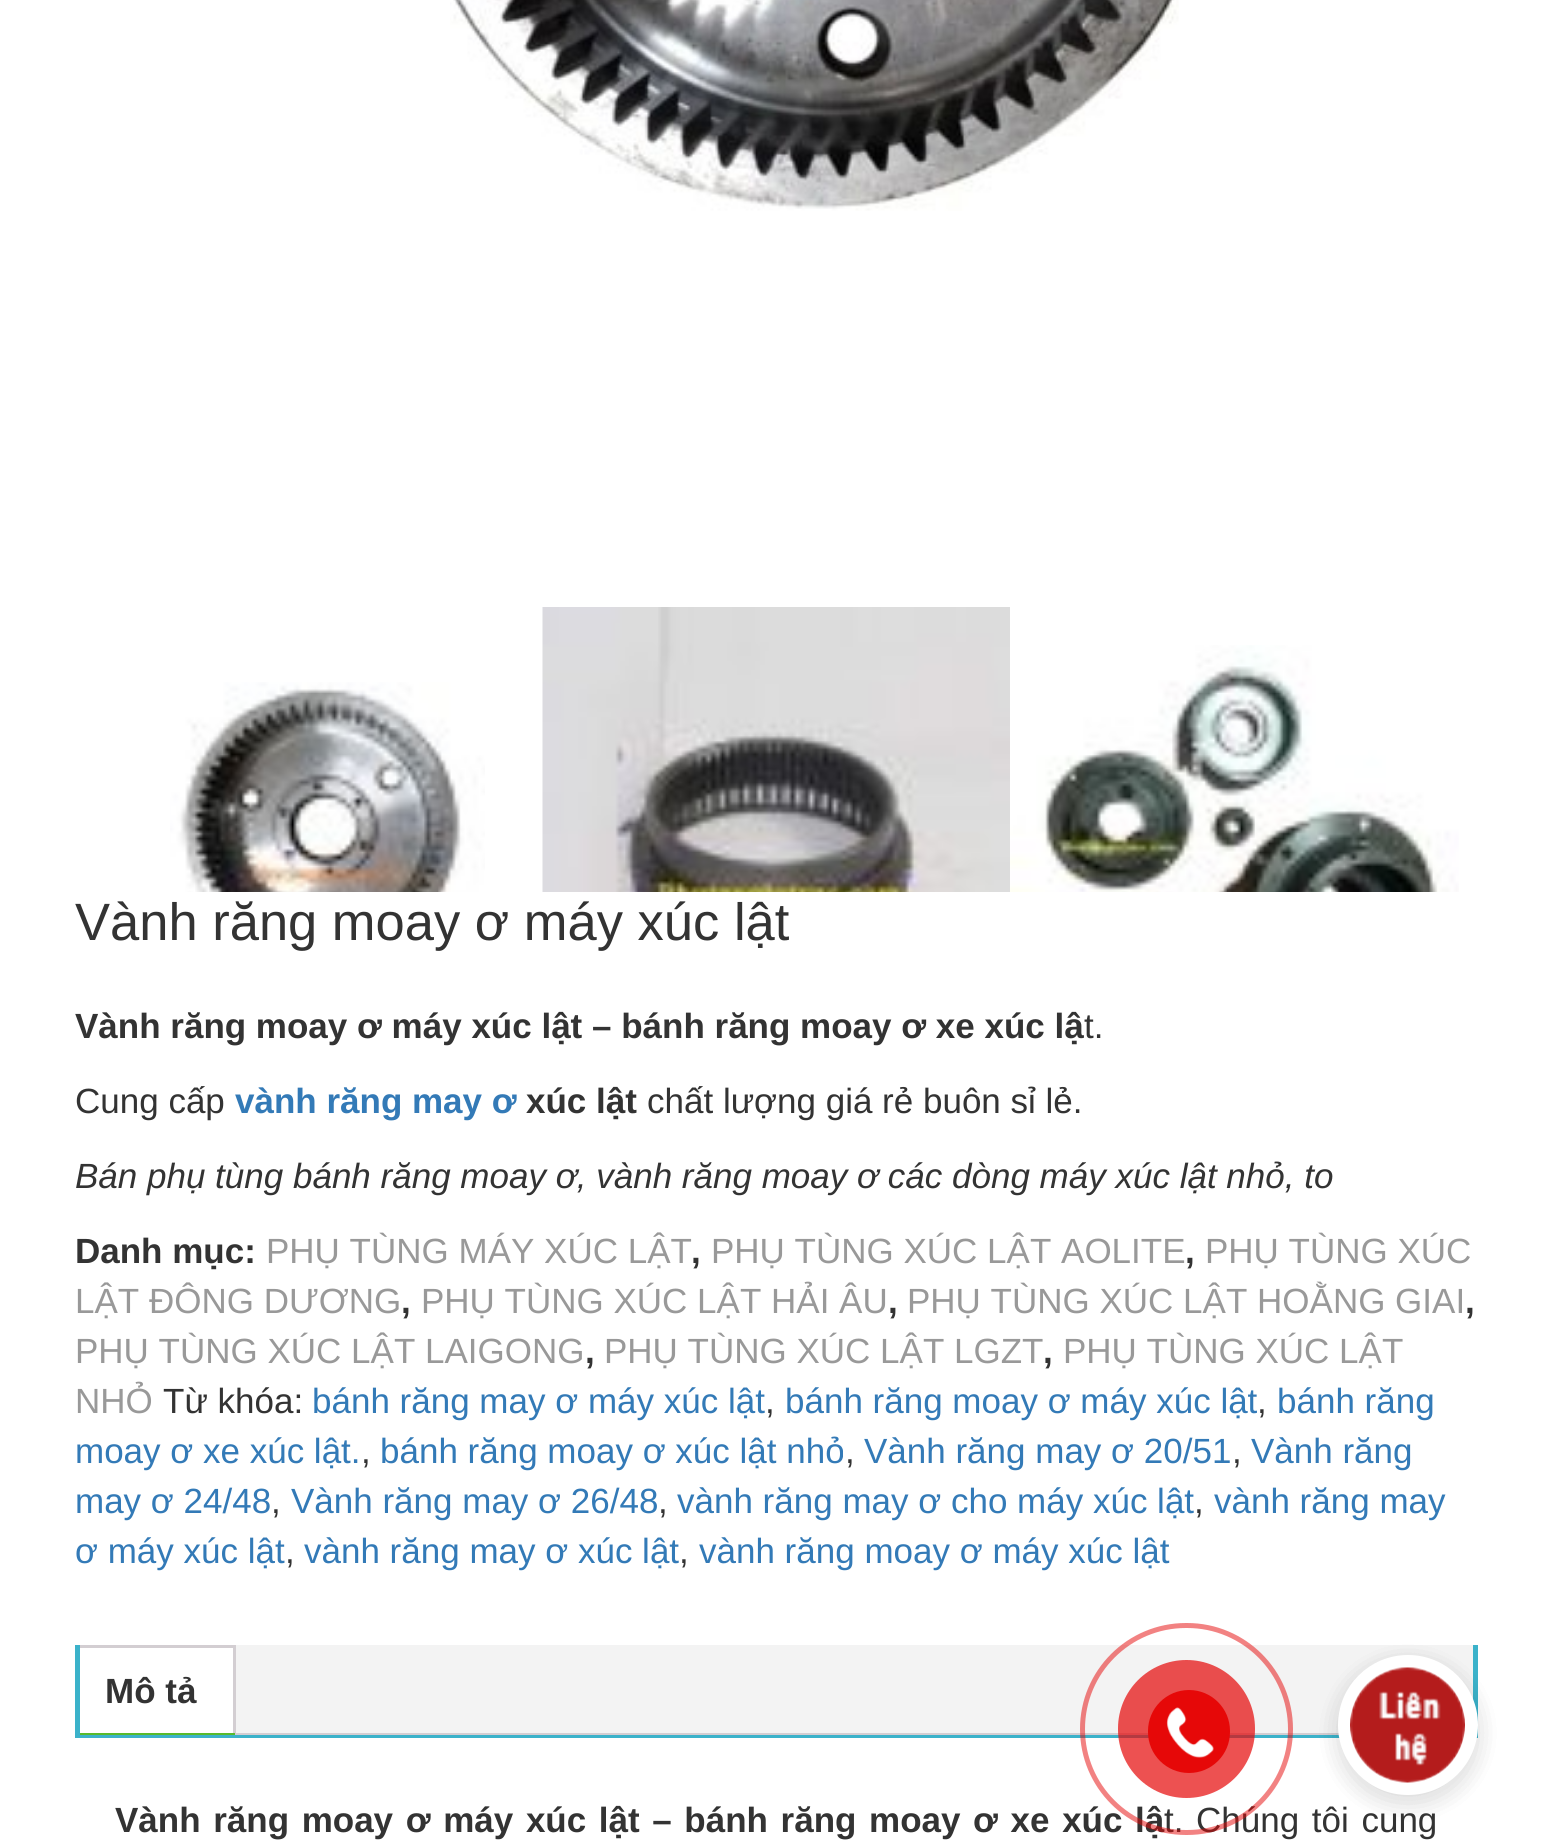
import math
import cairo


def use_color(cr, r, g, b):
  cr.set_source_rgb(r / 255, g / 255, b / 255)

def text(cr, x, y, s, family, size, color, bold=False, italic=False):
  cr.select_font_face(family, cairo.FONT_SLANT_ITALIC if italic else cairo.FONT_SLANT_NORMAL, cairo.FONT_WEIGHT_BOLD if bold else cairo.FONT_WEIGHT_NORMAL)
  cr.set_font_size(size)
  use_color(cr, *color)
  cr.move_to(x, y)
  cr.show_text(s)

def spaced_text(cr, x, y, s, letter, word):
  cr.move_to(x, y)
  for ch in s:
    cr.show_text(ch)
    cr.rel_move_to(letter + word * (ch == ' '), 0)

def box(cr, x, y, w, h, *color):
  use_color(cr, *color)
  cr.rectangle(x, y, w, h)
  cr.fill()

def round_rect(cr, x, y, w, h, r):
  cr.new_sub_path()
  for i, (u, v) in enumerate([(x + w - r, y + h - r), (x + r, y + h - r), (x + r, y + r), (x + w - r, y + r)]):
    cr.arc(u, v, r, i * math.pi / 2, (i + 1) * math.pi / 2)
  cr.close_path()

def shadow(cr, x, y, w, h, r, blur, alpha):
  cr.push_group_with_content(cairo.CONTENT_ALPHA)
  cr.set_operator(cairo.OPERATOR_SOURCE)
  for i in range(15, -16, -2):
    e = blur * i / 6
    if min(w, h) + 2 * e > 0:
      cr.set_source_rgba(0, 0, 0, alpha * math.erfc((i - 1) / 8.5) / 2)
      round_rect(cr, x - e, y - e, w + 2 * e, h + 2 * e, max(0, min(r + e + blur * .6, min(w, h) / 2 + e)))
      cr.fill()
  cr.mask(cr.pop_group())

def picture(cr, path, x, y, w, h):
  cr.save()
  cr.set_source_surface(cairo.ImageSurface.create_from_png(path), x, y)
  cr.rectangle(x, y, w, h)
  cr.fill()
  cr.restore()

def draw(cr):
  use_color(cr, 255, 255, 255)
  cr.paint()
  picture(cr, "img_01.png", 450, 0, 729, 211)
  picture(cr, "img_02.png", 170, 682, 315, 210)
  picture(cr, "img_03.png", 542, 607, 468, 285)
  picture(cr, "img_04.png", 1010, 645, 449, 247)
  box(cr, 236, 1645, 1237, 88, 243, 243, 243)
  box(cr, 1473, 1645, 5, 93, 59, 178, 202)
  box(cr, 75, 1735, 1403, 3, 59, 178, 202)
  box(cr, 75, 1645, 5, 93, 59, 178, 202)
  box(cr, 80, 1645, 155, 3, 211, 206, 210)
  box(cr, 233, 1645, 3, 90, 211, 206, 210)
  box(cr, 80, 1733, 155, 2, 88, 187, 44)
  box(cr, 236, 1733, 1103, 2, 211, 206, 210)
  use_color(cr, 0, 0, 0)
  shadow(cr, 1338, 1663, 140, 140, 70, 12.5, 0.08)
  shadow(cr, 1338, 1663, 140, 140, 70, 12.5, 0.08)
  use_color(cr, 255, 255, 255)
  cr.arc(1408, 1725, 63.5, 0, 2 * math.pi)
  cr.fill_preserve()
  cr.set_line_width(13)
  cr.stroke()
  picture(cr, "img_06.png", 1350, 1667, 115, 116)
  text(cr, 75, 940, "Vành răng moay ơ máy xúc lật", "Liberation Sans", 52.5, (51, 51, 51))
  text(cr, 75, 1038, "Vành răng moay ơ máy xúc lật – bánh răng moay ơ xe xúc lậ", "Liberation Sans", 35, (51, 51, 51), bold=True)
  text(cr, 1084, 1038, "t.", "Liberation Sans", 35, (51, 51, 51))
  text(cr, 75, 1113, "Cung cấp", "Liberation Sans", 35, (51, 51, 51))
  text(cr, 235, 1113, "vành răng may ơ", "Liberation Sans", 35, (51, 122, 183), bold=True)
  text(cr, 526, 1113, "xúc lật", "Liberation Sans", 35, (51, 51, 51), bold=True)
  text(cr, 647, 1113, "chất lượng giá rẻ buôn sỉ lẻ.", "Liberation Sans", 35, (51, 51, 51))
  text(cr, 75, 1188, "Bán phụ tùng bánh răng moay ơ, vành răng moay ơ các dòng máy xúc lật nhỏ, to", "Liberation Sans", 35, (51, 51, 51), italic=True)
  text(cr, 75, 1263, "Danh mục:", "Liberation Sans", 35, (51, 51, 51), bold=True)
  text(cr, 266, 1263, "PHỤ TÙNG MÁY XÚC LẬT", "Liberation Sans", 35, (153, 153, 153))
  text(cr, 691, 1263, ",", "Liberation Sans", 35, (51, 51, 51), bold=True)
  text(cr, 711, 1263, "PHỤ TÙNG XÚC LẬT AOLITE", "Liberation Sans", 35, (153, 153, 153))
  text(cr, 1185, 1263, ",", "Liberation Sans", 35, (51, 51, 51), bold=True)
  text(cr, 1205, 1263, "PHỤ TÙNG XÚC", "Liberation Sans", 35, (153, 153, 153))
  text(cr, 75, 1313, "LẬT ĐÔNG DƯƠNG", "Liberation Sans", 35, (153, 153, 153))
  text(cr, 401, 1313, ",", "Liberation Sans", 35, (51, 51, 51), bold=True)
  text(cr, 421, 1313, "PHỤ TÙNG XÚC LẬT HẢI ÂU", "Liberation Sans", 35, (153, 153, 153))
  text(cr, 888, 1313, ",", "Liberation Sans", 35, (51, 51, 51), bold=True)
  text(cr, 907, 1313, "PHỤ TÙNG XÚC LẬT HOẰNG GIAI", "Liberation Sans", 35, (153, 153, 153))
  text(cr, 1465, 1313, ",", "Liberation Sans", 35, (51, 51, 51), bold=True)
  text(cr, 75, 1363, "PHỤ TÙNG XÚC LẬT LAIGONG", "Liberation Sans", 35, (153, 153, 153))
  text(cr, 585, 1363, ",", "Liberation Sans", 35, (51, 51, 51), bold=True)
  text(cr, 604, 1363, "PHỤ TÙNG XÚC LẬT LGZT", "Liberation Sans", 35, (153, 153, 153))
  text(cr, 1043, 1363, ",", "Liberation Sans", 35, (51, 51, 51), bold=True)
  text(cr, 1063, 1363, "PHỤ TÙNG XÚC LẬT", "Liberation Sans", 35, (153, 153, 153))
  text(cr, 75, 1413, "NHỎ", "Liberation Sans", 35, (153, 153, 153))
  text(cr, 163, 1413, "Từ khóa:", "Liberation Sans", 35, (51, 51, 51))
  text(cr, 312, 1413, "bánh răng may ơ máy xúc lật", "Liberation Sans", 35, (51, 122, 183))
  text(cr, 765, 1413, ",", "Liberation Sans", 35, (51, 51, 51))
  text(cr, 785, 1413, "bánh răng moay ơ máy xúc lật", "Liberation Sans", 35, (51, 122, 183))
  text(cr, 1257, 1413, ",", "Liberation Sans", 35, (51, 51, 51))
  text(cr, 1277, 1413, "bánh răng", "Liberation Sans", 35, (51, 122, 183))
  text(cr, 75, 1463, "moay ơ xe xúc lật.", "Liberation Sans", 35, (51, 122, 183))
  text(cr, 361, 1463, ",", "Liberation Sans", 35, (51, 51, 51))
  text(cr, 380, 1463, "bánh răng moay ơ xúc lật nhỏ", "Liberation Sans", 35, (51, 122, 183))
  text(cr, 845, 1463, ",", "Liberation Sans", 35, (51, 51, 51))
  text(cr, 864, 1463, "Vành răng may ơ 20/51", "Liberation Sans", 35, (51, 122, 183))
  text(cr, 1232, 1463, ",", "Liberation Sans", 35, (51, 51, 51))
  text(cr, 1251, 1463, "Vành răng", "Liberation Sans", 35, (51, 122, 183))
  text(cr, 75, 1513, "may ơ 24/48", "Liberation Sans", 35, (51, 122, 183))
  text(cr, 271, 1513, ",", "Liberation Sans", 35, (51, 51, 51))
  text(cr, 291, 1513, "Vành răng may ơ 26/48", "Liberation Sans", 35, (51, 122, 183))
  text(cr, 658, 1513, ",", "Liberation Sans", 35, (51, 51, 51))
  text(cr, 677, 1513, "vành răng may ơ cho máy xúc lật", "Liberation Sans", 35, (51, 122, 183))
  text(cr, 1194, 1513, ",", "Liberation Sans", 35, (51, 51, 51))
  text(cr, 1214, 1513, "vành răng may", "Liberation Sans", 35, (51, 122, 183))
  text(cr, 75, 1563, "ơ máy xúc lật", "Liberation Sans", 35, (51, 122, 183))
  text(cr, 285, 1563, ",", "Liberation Sans", 35, (51, 51, 51))
  text(cr, 304, 1563, "vành răng may ơ xúc lật", "Liberation Sans", 35, (51, 122, 183))
  text(cr, 679, 1563, ",", "Liberation Sans", 35, (51, 51, 51))
  text(cr, 699, 1563, "vành răng moay ơ máy xúc lật", "Liberation Sans", 35, (51, 122, 183))
  text(cr, 105, 1703, "Mô tả", "Liberation Sans", 35, (51, 51, 51), bold=True)
  spaced_text(cr, 115, 1832, "Vành răng moay ơ máy xúc lật – bánh răng moay ơ xe xúc lậ", 0, 2.9)
  cr.select_font_face("Liberation Sans")
  spaced_text(cr, 1164, 1832, "t. Chúng tôi cung", 0, 2.9)
  round_rect(cr, 1082.5, 1625.5, 208, 207, 103.5)
  cr.set_source_rgba(0.902, 0.031, 0.031, 0.5)
  cr.set_line_width(5)
  cr.stroke()
  cr.set_source_rgba(0.902, 0.031, 0.031, 0.7)
  round_rect(cr, 1118, 1660, 137, 138, 68.5)
  cr.fill()
  use_color(cr, 230, 8, 8)
  round_rect(cr, 1148, 1690, 82, 83, 41)
  cr.fill()
  picture(cr, "img_05.png", 1166, 1707, 48, 51)


surface = cairo.ImageSurface(cairo.FORMAT_RGB24, 1551, 1840)
cr = cairo.Context(surface)
options = cairo.FontOptions()
options.set_hint_metrics(cairo.HINT_METRICS_OFF)
options.set_hint_style(cairo.HINT_STYLE_NONE)
cr.set_font_options(options)
cr.set_miter_limit(4)
draw(cr)
surface.write_to_png("out.png")
